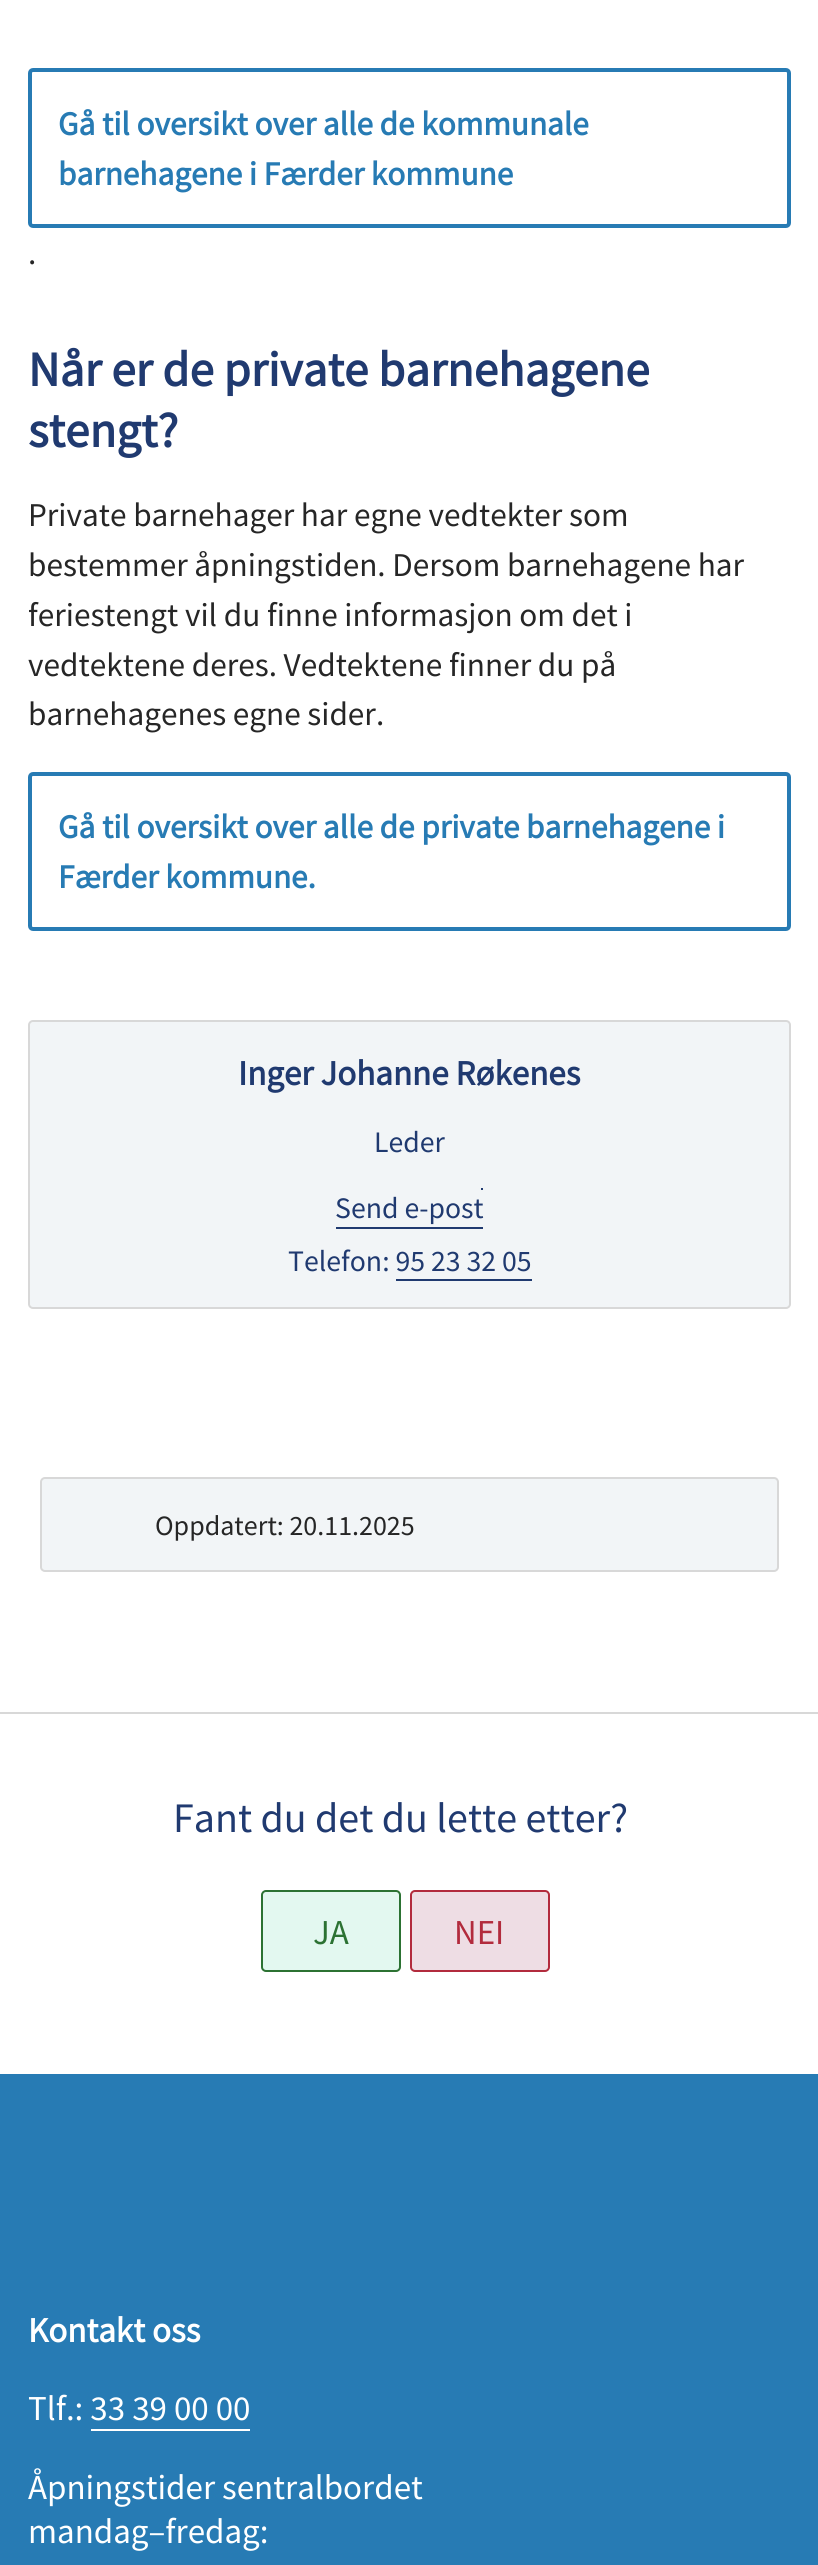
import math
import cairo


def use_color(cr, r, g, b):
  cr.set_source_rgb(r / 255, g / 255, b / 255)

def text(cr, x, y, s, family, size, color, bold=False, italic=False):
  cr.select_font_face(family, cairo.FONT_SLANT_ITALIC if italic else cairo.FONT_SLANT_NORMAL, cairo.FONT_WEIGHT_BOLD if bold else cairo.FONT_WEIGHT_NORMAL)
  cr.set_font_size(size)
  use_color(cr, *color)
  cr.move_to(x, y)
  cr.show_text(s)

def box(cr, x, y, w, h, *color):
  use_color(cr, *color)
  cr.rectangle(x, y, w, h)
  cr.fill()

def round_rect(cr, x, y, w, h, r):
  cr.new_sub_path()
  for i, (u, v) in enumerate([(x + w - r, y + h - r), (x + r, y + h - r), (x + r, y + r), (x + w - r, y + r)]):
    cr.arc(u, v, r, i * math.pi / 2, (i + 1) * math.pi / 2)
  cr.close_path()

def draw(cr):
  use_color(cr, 255, 255, 255)
  cr.paint()
  round_rect(cr, 30, 70, 759, 156, 3)
  use_color(cr, 39, 123, 180)
  cr.set_line_width(4)
  cr.stroke()
  round_rect(cr, 30, 774, 759, 155, 3)
  cr.stroke()
  use_color(cr, 242, 245, 247)
  round_rect(cr, 29, 1021, 761, 287, 4)
  cr.fill_preserve()
  use_color(cr, 216, 216, 216)
  cr.set_line_width(2)
  cr.stroke()
  box(cr, 336, 1227, 147, 2, 32, 58, 112)
  box(cr, 481, 1188, 2, 2, 32, 58, 112)
  box(cr, 396, 1279, 136, 2, 32, 58, 112)
  use_color(cr, 242, 245, 247)
  round_rect(cr, 41, 1478, 737, 93, 4)
  cr.fill_preserve()
  use_color(cr, 216, 216, 216)
  cr.stroke()
  box(cr, 0, 1712, 818, 2, 216, 216, 216)
  use_color(cr, 227, 248, 240)
  round_rect(cr, 262, 1891, 138, 80, 4)
  cr.fill_preserve()
  use_color(cr, 44, 114, 51)
  cr.stroke()
  use_color(cr, 238, 221, 228)
  round_rect(cr, 411, 1891, 138, 80, 4)
  cr.fill_preserve()
  use_color(cr, 178, 43, 61)
  cr.stroke()
  box(cr, 0, 2074, 818, 491, 39, 123, 180)
  box(cr, 91, 2429, 159, 2, 255, 255, 255)
  text(cr, 58, 135, "Gå til oversikt over alle de kommunale", "Source Sans Pro", 33.25, (39, 123, 180), bold=True)
  text(cr, 58, 185, "barnehagene i Færder kommune", "Source Sans Pro", 33.25, (39, 123, 180), bold=True)
  text(cr, 28, 264, ".", "Source Sans Pro", 33.25, (38, 38, 38))
  text(cr, 28, 386, "Når er de private barnehagene", "Source Sans Pro", 49, (32, 58, 112), bold=True)
  text(cr, 28, 447, "stengt?", "Source Sans Pro", 49, (32, 58, 112), bold=True)
  text(cr, 28, 526, "Private barnehager har egne vedtekter som", "Source Sans Pro", 33.25, (38, 38, 38))
  text(cr, 28, 576, "bestemmer åpningstiden. Dersom barnehagene har", "Source Sans Pro", 33.25, (38, 38, 38))
  text(cr, 28, 626, "feriestengt vil du finne informasjon om det i", "Source Sans Pro", 33.25, (38, 38, 38))
  text(cr, 28, 676, "vedtektene deres. Vedtektene finner du på", "Source Sans Pro", 33.25, (38, 38, 38))
  text(cr, 28, 725, "barnehagenes egne sider.", "Source Sans Pro", 33.25, (38, 38, 38))
  text(cr, 58, 838, "Gå til oversikt over alle de private barnehagene i", "Source Sans Pro", 33.25, (39, 123, 180), bold=True)
  text(cr, 58, 888, "Færder kommune.", "Source Sans Pro", 33.25, (39, 123, 180), bold=True)
  text(cr, 238, 1085, "Inger Johanne Røkenes", "Source Sans Pro", 35, (32, 58, 112), bold=True)
  text(cr, 374, 1152, "Leder", "Source Sans Pro", 29.75, (32, 58, 112))
  text(cr, 335, 1218, "Send e-post", "Source Sans Pro", 29.75, (32, 58, 112))
  text(cr, 288, 1271, "Telefon: 95 23 32 05", "Source Sans Pro", 29.75, (32, 58, 112))
  text(cr, 155, 1535, "Oppdatert: 20.11.2025", "Source Sans Pro", 28, (38, 38, 38))
  text(cr, 173, 1832, "Fant du det du lette etter?", "Source Sans Pro", 42, (32, 58, 112))
  text(cr, 313, 1944, "JA", "Source Sans Pro", 35, (44, 114, 51))
  text(cr, 454, 1944, "NEI", "Source Sans Pro", 35, (178, 43, 61))
  text(cr, 28, 2342, "Kontakt oss", "Source Sans Pro", 35, (255, 255, 255), bold=True)
  text(cr, 28, 2420, "Tlf.: 33 39 00 00", "Source Sans Pro", 35, (255, 255, 255))
  text(cr, 28, 2499, "Åpningstider sentralbordet", "Source Sans Pro", 35, (255, 255, 255))
  text(cr, 28, 2543, "mandag–fredag:", "Source Sans Pro", 35, (255, 255, 255))


surface = cairo.ImageSurface(cairo.FORMAT_RGB24, 818, 2565)
cr = cairo.Context(surface)
options = cairo.FontOptions()
options.set_hint_metrics(cairo.HINT_METRICS_OFF)
options.set_hint_style(cairo.HINT_STYLE_NONE)
cr.set_font_options(options)
cr.set_miter_limit(4)
draw(cr)
surface.write_to_png("out.png")
